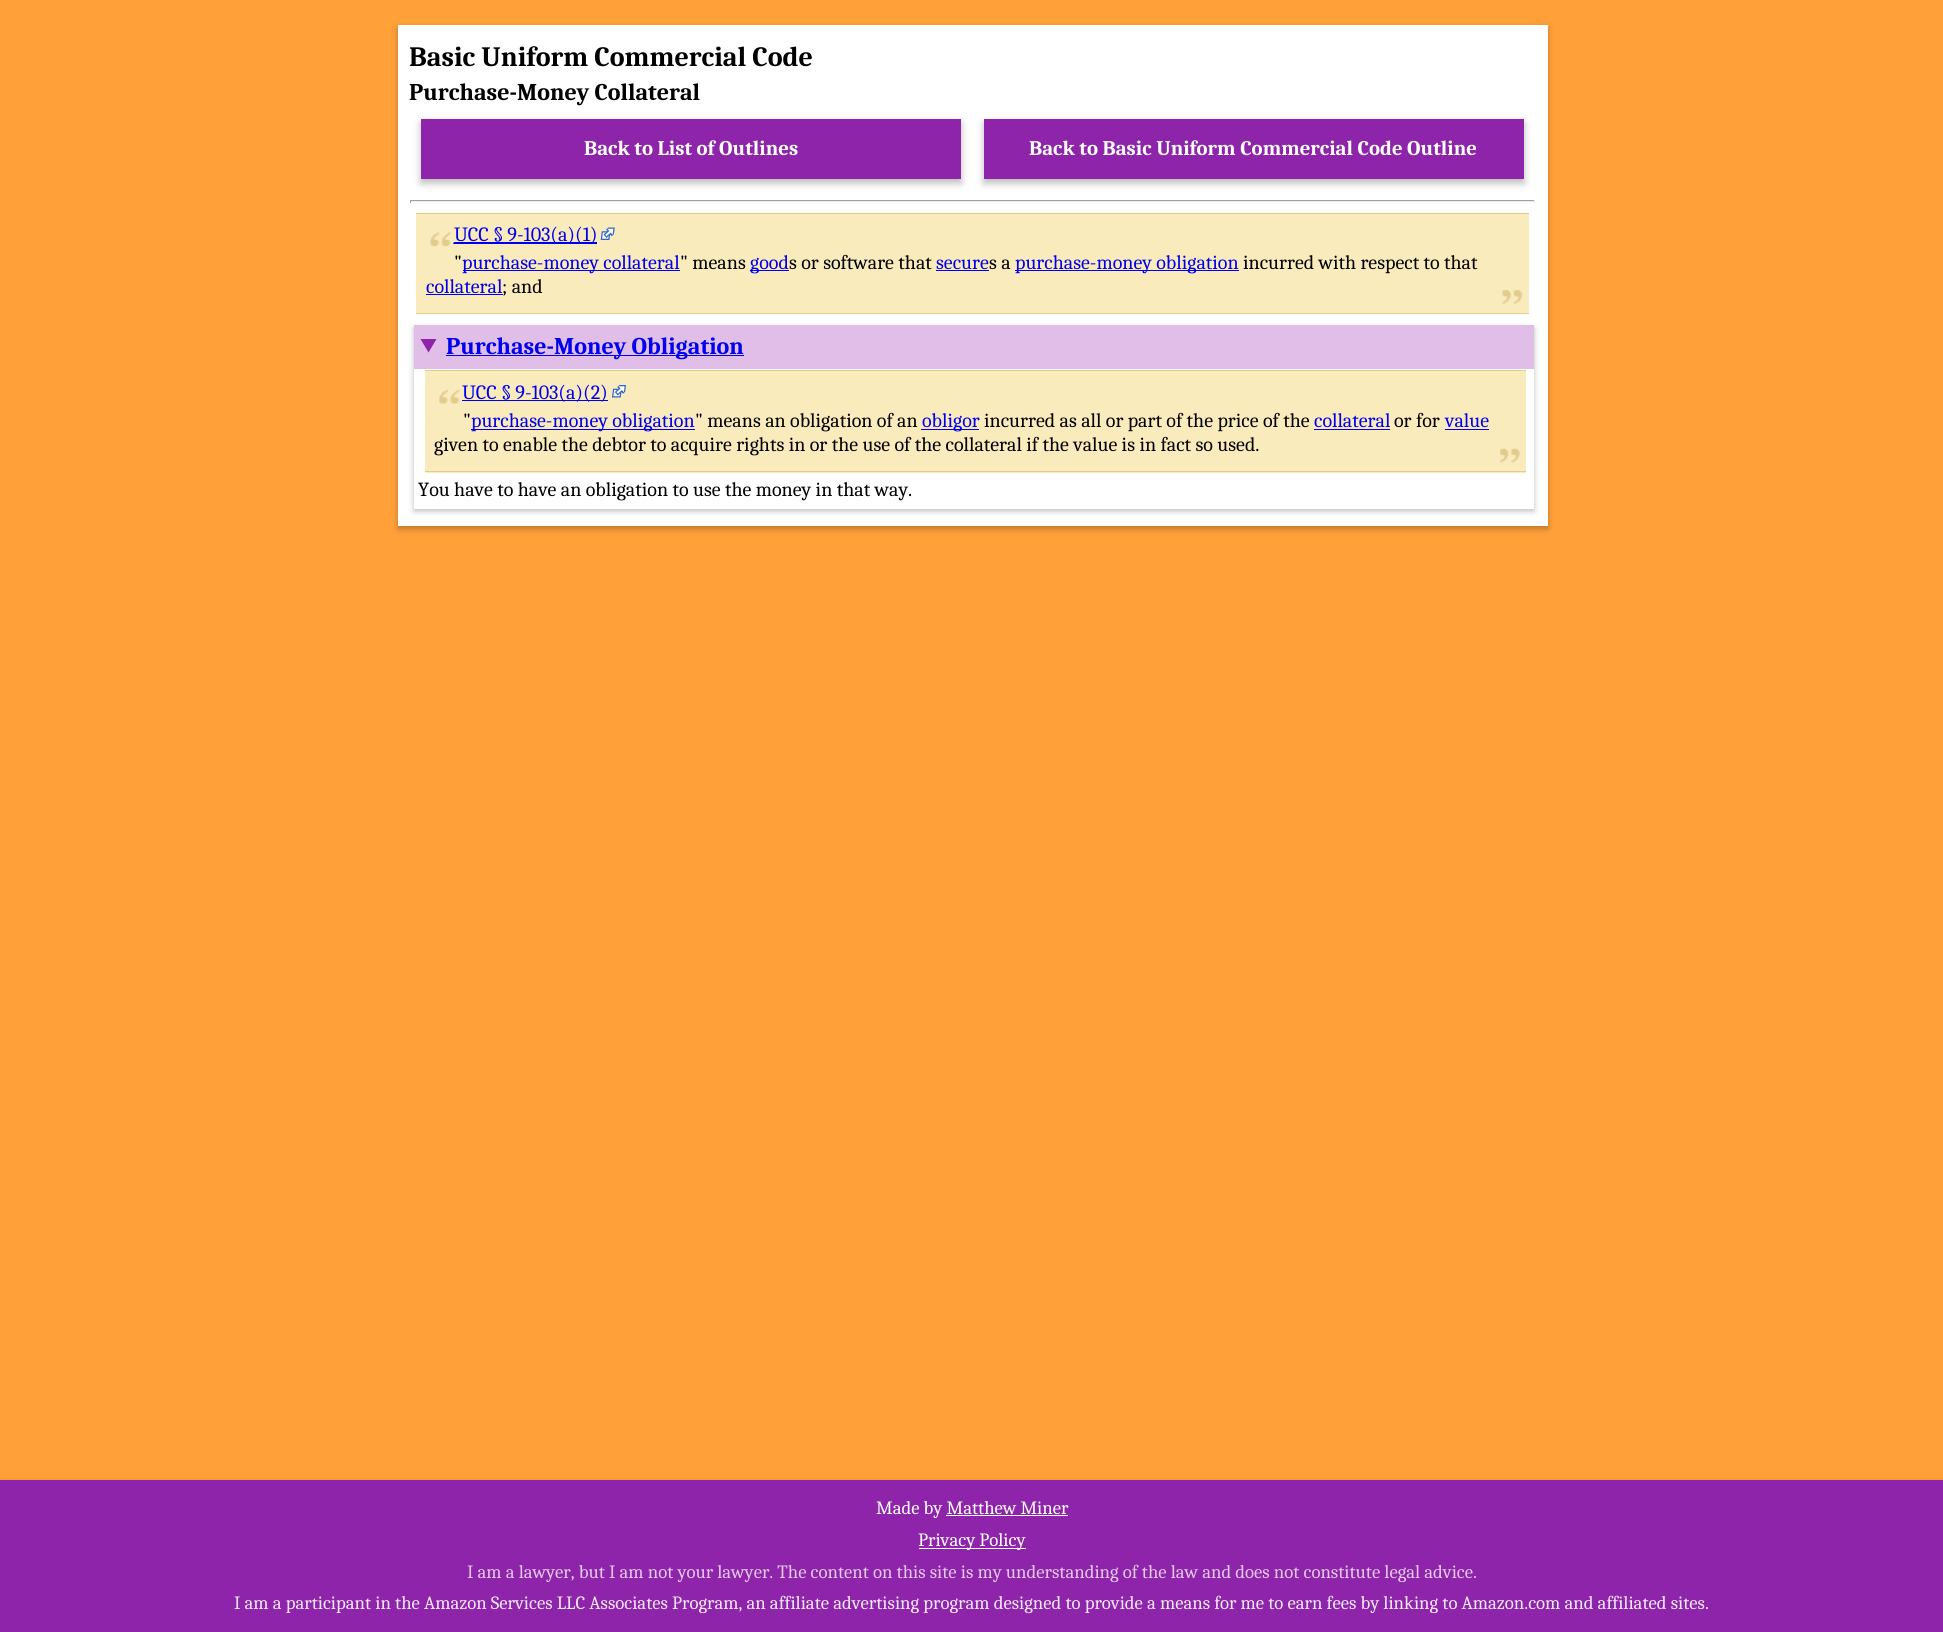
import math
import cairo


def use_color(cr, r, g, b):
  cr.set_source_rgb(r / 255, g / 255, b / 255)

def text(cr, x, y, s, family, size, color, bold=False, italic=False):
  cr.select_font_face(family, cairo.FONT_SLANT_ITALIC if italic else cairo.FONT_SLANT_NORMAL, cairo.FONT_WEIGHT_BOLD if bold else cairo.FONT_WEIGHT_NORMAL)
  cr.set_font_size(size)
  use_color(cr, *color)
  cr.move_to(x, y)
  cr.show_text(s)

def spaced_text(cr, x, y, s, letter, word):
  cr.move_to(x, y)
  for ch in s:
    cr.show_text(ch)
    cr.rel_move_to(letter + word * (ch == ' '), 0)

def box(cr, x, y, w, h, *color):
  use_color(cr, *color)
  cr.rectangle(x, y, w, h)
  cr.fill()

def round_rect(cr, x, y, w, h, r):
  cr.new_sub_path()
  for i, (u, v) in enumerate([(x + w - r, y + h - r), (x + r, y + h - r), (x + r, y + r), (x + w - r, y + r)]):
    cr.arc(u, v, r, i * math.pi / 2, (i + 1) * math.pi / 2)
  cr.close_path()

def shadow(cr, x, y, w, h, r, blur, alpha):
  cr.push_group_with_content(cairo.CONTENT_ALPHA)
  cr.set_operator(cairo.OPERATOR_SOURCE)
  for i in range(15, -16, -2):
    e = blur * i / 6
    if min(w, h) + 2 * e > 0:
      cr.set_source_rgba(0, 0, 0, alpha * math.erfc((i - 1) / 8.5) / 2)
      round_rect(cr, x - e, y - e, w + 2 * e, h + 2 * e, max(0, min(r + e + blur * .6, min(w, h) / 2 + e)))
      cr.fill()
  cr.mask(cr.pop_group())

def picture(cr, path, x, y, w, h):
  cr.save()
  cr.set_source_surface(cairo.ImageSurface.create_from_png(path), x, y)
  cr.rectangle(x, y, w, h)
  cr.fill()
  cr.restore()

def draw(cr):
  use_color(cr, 255, 160, 57)
  cr.paint()
  use_color(cr, 0, 0, 0)
  shadow(cr, 398, 28, 1150, 501, 0, 3, 0.26)
  box(cr, 398, 25, 1150, 501, 255, 255, 255)
  use_color(cr, 0, 0, 0)
  shadow(cr, 421, 123, 540, 60, 0, 4, 0.28)
  box(cr, 421, 119, 540, 60, 142, 36, 170)
  use_color(cr, 0, 0, 0)
  shadow(cr, 984, 123, 540, 60, 0, 4, 0.28)
  box(cr, 984, 119, 540, 60, 142, 36, 170)
  box(cr, 410, 200, 1125, 1, 159, 159, 159)
  box(cr, 1534, 200, 1, 3, 238, 238, 238)
  box(cr, 410, 201, 1125, 1, 238, 238, 238)
  box(cr, 410, 200, 1, 3, 159, 159, 159)
  box(cr, 416, 214, 1113, 99, 250, 235, 188)
  picture(cr, "img_01.png", 1502, 290, 21, 14)
  box(cr, 416, 213, 1113, 1, 225, 204, 137)
  box(cr, 416, 313, 1113, 1, 225, 204, 137)
  picture(cr, "img_02.png", 430, 232, 22, 15)
  use_color(cr, 0, 0, 238)
  cr.new_path()
  cr.move_to(454, 242)
  cr.line_to(597, 242)
  cr.line_to(597, 244)
  cr.line_to(453, 244)
  cr.close_path()
  cr.fill()
  picture(cr, "img_03.png", 600, 227, 15, 13)
  box(cr, 463, 270, 217, 1, 0, 0, 238)
  box(cr, 750, 270, 39, 1, 0, 0, 238)
  box(cr, 936, 270, 53, 1, 0, 0, 238)
  box(cr, 1015, 270, 224, 1, 0, 0, 238)
  box(cr, 426, 294, 77, 1, 0, 0, 238)
  cr.save()
  cr.set_fill_rule(cairo.FILL_RULE_EVEN_ODD)
  cr.new_path()
  cr.move_to(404, 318)
  cr.line_to(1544, 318)
  cr.line_to(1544, 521)
  cr.line_to(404, 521)
  cr.close_path()
  cr.move_to(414, 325)
  cr.line_to(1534, 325)
  cr.line_to(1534, 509)
  cr.line_to(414, 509)
  cr.close_path()
  cr.clip()
  use_color(cr, 0, 0, 0)
  shadow(cr, 414, 328, 1120, 183, 0, 3, 0.26)
  cr.restore()
  box(cr, 414, 325, 1120, 44, 225, 190, 231)
  use_color(cr, 142, 36, 170)
  cr.new_path()
  cr.move_to(420.5, 339)
  cr.line_to(436.5, 339)
  cr.line_to(428.5, 352.5)
  cr.close_path()
  cr.fill()
  box(cr, 446, 355, 298, 1, 0, 0, 238)
  box(cr, 425, 371, 1101, 102, 250, 235, 188)
  picture(cr, "img_04.png", 1500, 448, 20, 15)
  box(cr, 425, 370, 1101, 1, 225, 204, 137)
  box(cr, 425, 471, 1101, 1, 225, 204, 137)
  picture(cr, "img_05.png", 439, 389, 22, 15)
  box(cr, 462, 400, 146, 1, 0, 0, 238)
  picture(cr, "img_06.png", 612, 385, 14, 13)
  box(cr, 471, 429, 224, 1, 0, 0, 238)
  box(cr, 921, 429, 58, 1, 0, 0, 238)
  box(cr, 1314, 429, 76, 1, 0, 0, 238)
  box(cr, 1445, 429, 44, 1, 0, 0, 238)
  use_color(cr, 0, 0, 0)
  shadow(cr, 0, 1483, 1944, 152, 0, 3, 0.26)
  box(cr, 0, 1480, 1943, 152, 142, 36, 170)
  box(cr, 946, 1515, 122, 1, 255, 255, 255)
  box(cr, 919, 1548, 107, 1, 255, 255, 255)
  text(cr, 409, 66, "Basic Uniform Commercial Code", "Caladea", 28, (0, 0, 0), bold=True)
  text(cr, 409, 100, "Purchase-Money Collateral", "Caladea", 24, (0, 0, 0), bold=True)
  text(cr, 584, 155, "Back to List of Outlines", "Caladea", 20.8, (255, 255, 255), bold=True)
  text(cr, 1029, 155, "Back to Basic Uniform Commercial Code Outline", "Caladea", 20.8, (255, 255, 255), bold=True)
  cr.select_font_face("Caladea")
  cr.set_font_size(20.25)
  use_color(cr, 0, 0, 238)
  spaced_text(cr, 454, 241, "UCC § 9-103(a)(1)", -0.1, 0)
  text(cr, 454, 269, "\"", "Caladea", 20, (0, 0, 0))
  text(cr, 462, 269, "purchase-money collateral", "Caladea", 20, (0, 0, 238))
  text(cr, 680, 269, "\" means", "Caladea", 20, (0, 0, 0))
  text(cr, 750, 269, "good", "Caladea", 20, (0, 0, 238))
  text(cr, 789, 269, "s or software that", "Caladea", 20, (0, 0, 0))
  text(cr, 936, 269, "secure", "Caladea", 20, (0, 0, 238))
  text(cr, 989, 269, "s a", "Caladea", 20, (0, 0, 0))
  text(cr, 1015, 269, "purchase-money obligation", "Caladea", 20, (0, 0, 238))
  text(cr, 1243, 269, "incurred with respect to that", "Caladea", 20, (0, 0, 0))
  text(cr, 426, 293, "collateral", "Caladea", 20, (0, 0, 238))
  text(cr, 502, 293, "; and", "Caladea", 20, (0, 0, 0))
  text(cr, 446, 354, "Purchase-Money Obligation", "Caladea", 24, (0, 0, 238), bold=True)
  cr.select_font_face("Caladea")
  cr.set_font_size(20.25)
  spaced_text(cr, 462, 399, "UCC § 9-103(a)(2)", -0.1, 0)
  text(cr, 463, 427, "\"", "Caladea", 20, (0, 0, 0))
  text(cr, 471, 427, "purchase-money obligation", "Caladea", 20, (0, 0, 238))
  text(cr, 695, 427, "\" means an obligation of an", "Caladea", 20, (0, 0, 0))
  text(cr, 922, 427, "obligor", "Caladea", 20, (0, 0, 238))
  text(cr, 984, 427, "incurred as all or part of the price of the", "Caladea", 20, (0, 0, 0))
  text(cr, 1314, 427, "collateral", "Caladea", 20, (0, 0, 238))
  text(cr, 1394, 427, "or for", "Caladea", 20, (0, 0, 0))
  text(cr, 1445, 427, "value", "Caladea", 20, (0, 0, 238))
  text(cr, 434, 451, "given to enable the debtor to acquire rights in or the use of the collateral if the value is in fact so used.", "Caladea", 20, (0, 0, 0))
  text(cr, 418, 496, "You have to have an obligation to use the money in that way.", "Caladea", 20, (0, 0, 0))
  text(cr, 876, 1514, "Made by Matthew Miner", "Caladea", 18.75, (255, 255, 255))
  text(cr, 918, 1546, "Privacy Policy", "Caladea", 18.75, (255, 255, 255))
  text(cr, 467, 1578, "I am a lawyer, but I am not your lawyer. The content on this site is my understanding of the law and does not constitute legal advice.", "Caladea", 18.75, (227, 200, 234))
  text(cr, 234, 1609, "I am a participant in the Amazon Services LLC Associates Program, an affiliate advertising program designed to provide a means for me to earn fees by linking to Amazon.com and affiliated sites.", "Caladea", 18.75, (244, 233, 247))


surface = cairo.ImageSurface(cairo.FORMAT_RGB24, 1943, 1632)
cr = cairo.Context(surface)
options = cairo.FontOptions()
options.set_hint_metrics(cairo.HINT_METRICS_OFF)
options.set_hint_style(cairo.HINT_STYLE_NONE)
cr.set_font_options(options)
cr.set_miter_limit(4)
draw(cr)
surface.write_to_png("out.png")
